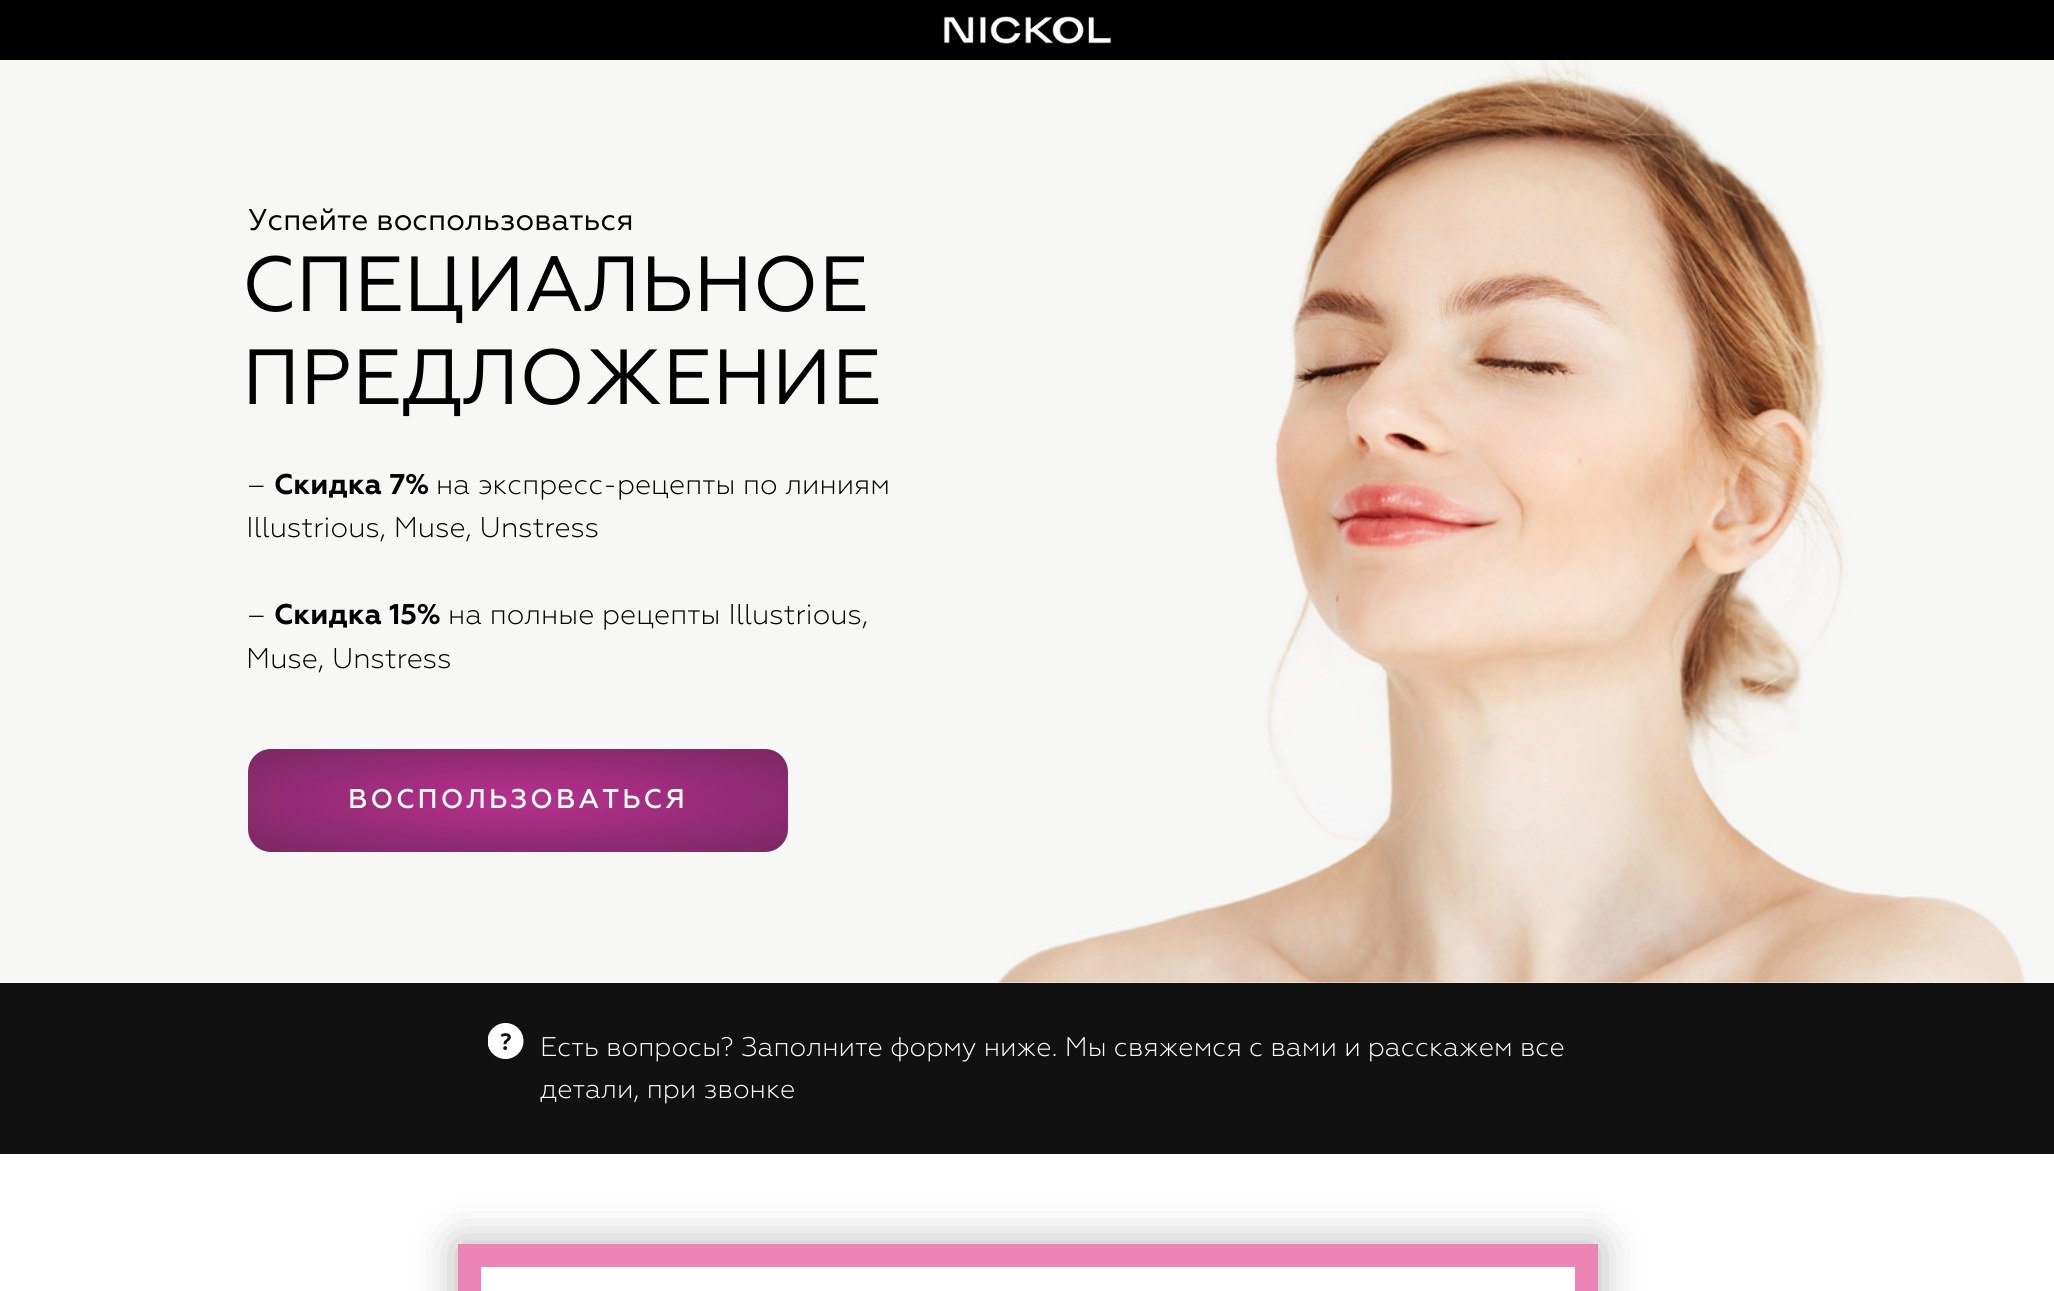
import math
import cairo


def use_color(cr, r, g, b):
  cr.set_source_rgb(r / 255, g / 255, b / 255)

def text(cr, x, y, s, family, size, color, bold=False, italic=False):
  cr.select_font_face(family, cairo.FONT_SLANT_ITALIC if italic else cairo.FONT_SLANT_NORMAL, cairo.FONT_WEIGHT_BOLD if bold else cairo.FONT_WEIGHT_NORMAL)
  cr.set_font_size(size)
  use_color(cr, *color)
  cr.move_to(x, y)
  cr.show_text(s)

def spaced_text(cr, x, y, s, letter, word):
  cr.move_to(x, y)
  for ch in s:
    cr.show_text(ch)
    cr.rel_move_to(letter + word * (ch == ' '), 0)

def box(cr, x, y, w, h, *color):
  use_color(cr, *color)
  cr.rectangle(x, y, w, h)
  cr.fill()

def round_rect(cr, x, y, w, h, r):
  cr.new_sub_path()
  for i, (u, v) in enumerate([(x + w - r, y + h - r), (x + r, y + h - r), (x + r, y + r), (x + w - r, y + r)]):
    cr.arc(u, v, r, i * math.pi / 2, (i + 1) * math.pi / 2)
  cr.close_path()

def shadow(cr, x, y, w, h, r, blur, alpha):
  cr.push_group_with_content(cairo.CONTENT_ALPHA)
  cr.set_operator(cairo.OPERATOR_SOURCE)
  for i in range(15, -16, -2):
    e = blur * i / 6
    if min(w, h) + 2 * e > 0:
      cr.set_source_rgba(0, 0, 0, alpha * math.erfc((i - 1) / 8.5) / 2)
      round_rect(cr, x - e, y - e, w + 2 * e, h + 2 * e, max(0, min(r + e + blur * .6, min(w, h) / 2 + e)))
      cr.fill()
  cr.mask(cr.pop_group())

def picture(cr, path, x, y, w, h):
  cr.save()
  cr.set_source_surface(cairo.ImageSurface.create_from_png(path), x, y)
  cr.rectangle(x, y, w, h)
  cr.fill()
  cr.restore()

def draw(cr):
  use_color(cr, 255, 255, 255)
  cr.paint()
  box(cr, 0, 0, 2054, 60, 0, 0, 0)
  picture(cr, "img_01.png", 943, 16, 169, 28)
  box(cr, 0, 60, 2054, 923, 247, 247, 245)
  picture(cr, "img_02.png", 997, 60, 1028, 923)
  cr.save()
  round_rect(cr, 248, 749, 540, 103, 23)
  cr.clip()
  gradient = cairo.RadialGradient(0, 0, 0, 0, 0, 1)
  gradient.set_matrix(cairo.Matrix(1 / 380, 0, 0, 1 / 71, -1 * 518 / 380, -1 * 700 / 71))
  gradient.add_color_stop_rgba(0, 0.722, 0.188, 0.561, 1)
  gradient.add_color_stop_rgba(1, 0.478, 0.157, 0.384, 1)
  cr.set_source(gradient)
  cr.rectangle(264, 749, 508, 1)
  cr.fill()
  gradient = cairo.RadialGradient(0, 0, 0, 0, 0, 1)
  gradient.set_matrix(cairo.Matrix(1 / 380, 0, 0, 1 / 71, -1 * -19 / 380, -1 * 800 / 71))
  gradient.add_color_stop_rgba(0, 0.722, 0.188, 0.561, 1)
  gradient.add_color_stop_rgba(1, 0.478, 0.157, 0.384, 1)
  cr.set_source(gradient)
  cr.rectangle(248, 765, 1, 71)
  cr.fill()
  gradient = cairo.RadialGradient(0, 0, 0, 0, 0, 1)
  gradient.set_matrix(cairo.Matrix(1 / 380, 0, 0, 1 / 71, -1 * 518 / 380, -1 * 800 / 71))
  gradient.add_color_stop_rgba(0, 0.722, 0.188, 0.561, 1)
  gradient.add_color_stop_rgba(1, 0.478, 0.157, 0.384, 1)
  cr.set_source(gradient)
  cr.rectangle(249, 750, 537, 101)
  cr.fill()
  gradient = cairo.RadialGradient(0, 0, 0, 0, 0, 1)
  gradient.set_matrix(cairo.Matrix(1 / 380, 0, 0, 1 / 71, -1 * 1055 / 380, -1 * 800 / 71))
  gradient.add_color_stop_rgba(0, 0.722, 0.188, 0.561, 1)
  gradient.add_color_stop_rgba(1, 0.478, 0.157, 0.384, 1)
  cr.set_source(gradient)
  cr.rectangle(786, 762, 2, 77)
  cr.fill()
  gradient = cairo.RadialGradient(0, 0, 0, 0, 0, 1)
  gradient.set_matrix(cairo.Matrix(1 / 380, 0, 0, 1 / 71, -1 * 518 / 380, -1 * 901 / 71))
  gradient.add_color_stop_rgba(0, 0.722, 0.188, 0.561, 1)
  gradient.add_color_stop_rgba(1, 0.478, 0.157, 0.384, 1)
  cr.set_source(gradient)
  cr.rectangle(264, 851, 508, 1)
  cr.fill()
  cr.restore()
  box(cr, 0, 983, 2054, 171, 18, 17, 17)
  picture(cr, "img_03.png", 488, 1023, 36, 36)
  cr.save()
  cr.set_fill_rule(cairo.FILL_RULE_EVEN_ODD)
  cr.new_path()
  cr.move_to(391, 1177)
  cr.line_to(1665, 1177)
  cr.line_to(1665, 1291)
  cr.line_to(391, 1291)
  cr.close_path()
  cr.move_to(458, 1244)
  cr.line_to(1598, 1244)
  cr.line_to(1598, 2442)
  cr.line_to(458, 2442)
  cr.close_path()
  cr.clip()
  use_color(cr, 0, 0, 0)
  shadow(cr, 458, 1244, 1140, 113, 0, 22, 0.3)
  cr.restore()
  cr.rectangle(469.5, 1255.5, 1117, 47)
  use_color(cr, 236, 132, 181)
  cr.set_line_width(23)
  cr.stroke()
  text(cr, 248, 230, "Успейте воспользоваться", "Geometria", 30, (0, 0, 0))
  text(cr, 242, 311, "СПЕЦИАЛЬНОЕ", "Geometria", 78, (0, 0, 0))
  text(cr, 242, 404, "ПРЕДЛОЖЕНИЕ", "Geometria", 78, (0, 0, 0))
  text(cr, 246, 494, "–", "Geometria Light", 28.5, (0, 0, 0))
  text(cr, 274, 494, "Скидка 7%", "Geometria", 28.5, (0, 0, 0), bold=True)
  text(cr, 436, 494, "на экспресc-рецепты по линиям", "Geometria Light", 28.5, (0, 0, 0))
  text(cr, 246, 537, "Illustrious, Muse, Unstress", "Geometria Light", 28.5, (0, 0, 0))
  text(cr, 246, 624, "–", "Geometria Light", 28.5, (0, 0, 0))
  text(cr, 274, 624, "Скидка 15%", "Geometria", 28.5, (0, 0, 0), bold=True)
  text(cr, 448, 624, "на полные рецепты Illustrious,", "Geometria Light", 28.5, (0, 0, 0))
  text(cr, 246, 668, "Muse, Unstress", "Geometria Light", 28.5, (0, 0, 0))
  cr.select_font_face("Geometria Medium")
  cr.set_font_size(27)
  use_color(cr, 255, 255, 255)
  spaced_text(cr, 348, 808, "ВОСПОЛЬЗОВАТЬСЯ", 3, 0)
  text(cr, 540, 1056, "Есть вопросы? Заполните форму ниже. Мы свяжемся с вами и расскажем все", "Geometria Light", 27, (255, 255, 255))
  text(cr, 540, 1098, "детали, при звонке", "Geometria Light", 27, (255, 255, 255))


surface = cairo.ImageSurface(cairo.FORMAT_RGB24, 2054, 1291)
cr = cairo.Context(surface)
options = cairo.FontOptions()
options.set_hint_metrics(cairo.HINT_METRICS_OFF)
options.set_hint_style(cairo.HINT_STYLE_NONE)
cr.set_font_options(options)
cr.set_miter_limit(4)
draw(cr)
surface.write_to_png("out.png")
